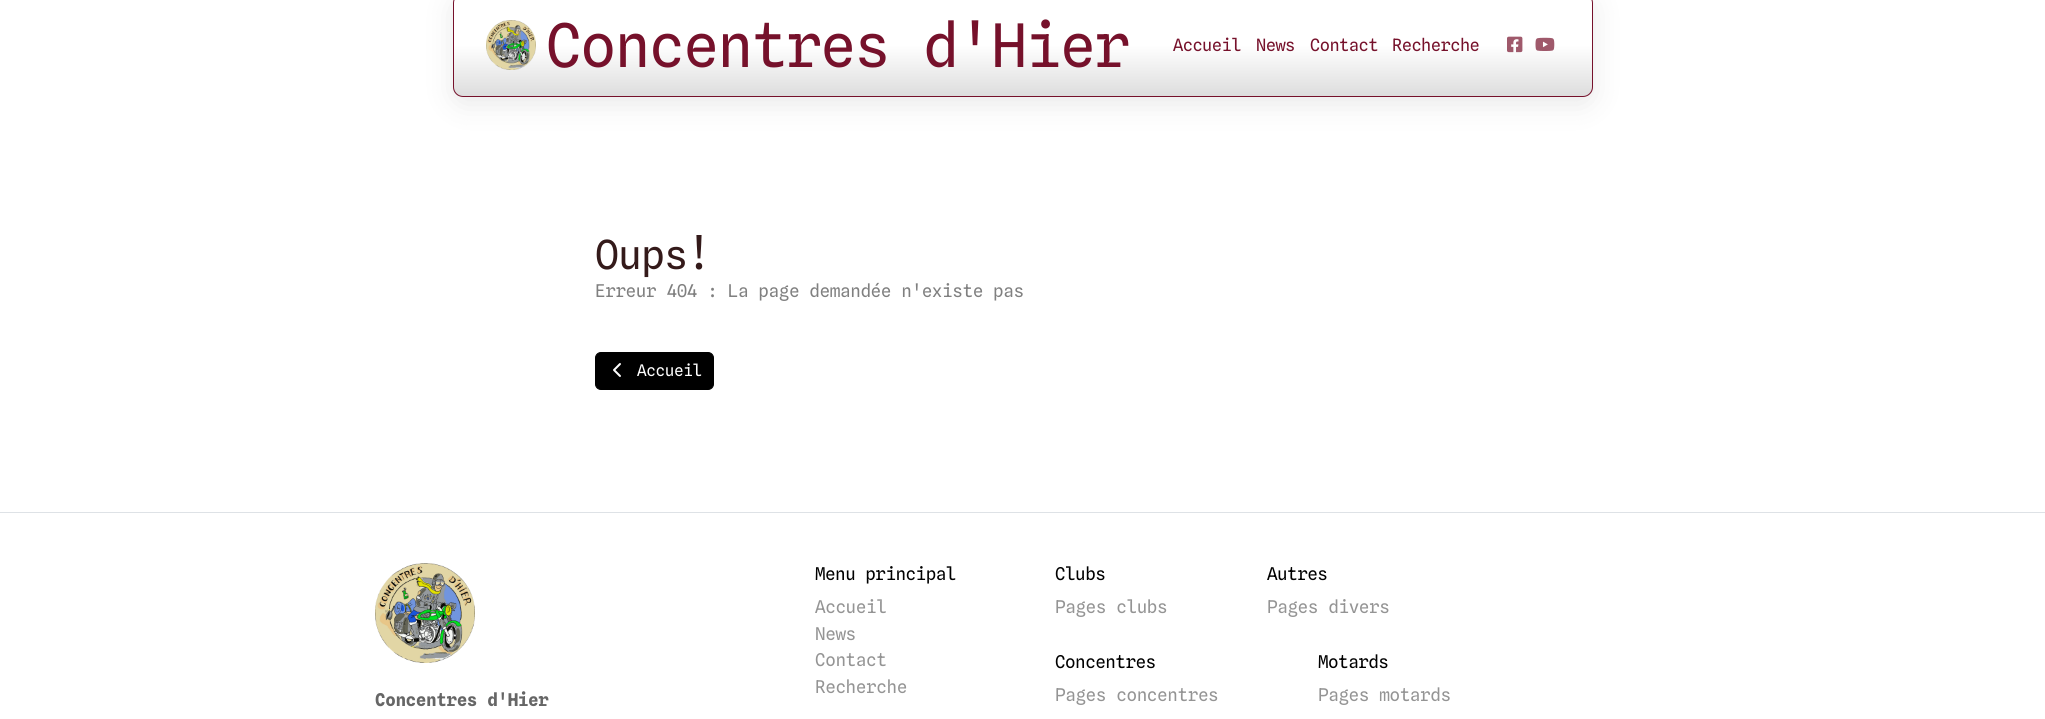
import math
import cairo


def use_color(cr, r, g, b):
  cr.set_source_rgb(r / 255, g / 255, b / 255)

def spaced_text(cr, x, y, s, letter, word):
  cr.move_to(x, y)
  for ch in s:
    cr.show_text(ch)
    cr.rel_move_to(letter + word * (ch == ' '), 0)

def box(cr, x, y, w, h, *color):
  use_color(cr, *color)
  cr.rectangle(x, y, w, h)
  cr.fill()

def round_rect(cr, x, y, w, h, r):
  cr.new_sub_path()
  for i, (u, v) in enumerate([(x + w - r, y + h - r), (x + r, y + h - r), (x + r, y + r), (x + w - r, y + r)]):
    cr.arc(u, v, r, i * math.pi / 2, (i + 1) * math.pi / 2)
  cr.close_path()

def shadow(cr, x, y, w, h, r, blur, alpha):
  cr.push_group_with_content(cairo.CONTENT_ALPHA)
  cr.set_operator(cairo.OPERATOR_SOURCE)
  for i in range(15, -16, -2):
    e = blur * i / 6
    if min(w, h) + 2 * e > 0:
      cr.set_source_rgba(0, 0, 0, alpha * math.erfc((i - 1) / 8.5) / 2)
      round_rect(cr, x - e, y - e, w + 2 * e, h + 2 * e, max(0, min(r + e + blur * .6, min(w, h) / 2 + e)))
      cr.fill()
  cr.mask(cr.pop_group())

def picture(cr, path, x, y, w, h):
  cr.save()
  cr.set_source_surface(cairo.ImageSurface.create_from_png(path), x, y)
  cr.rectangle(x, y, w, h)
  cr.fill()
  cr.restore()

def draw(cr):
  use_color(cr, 255, 255, 255)
  cr.paint()
  use_color(cr, 0, 0, 0)
  shadow(cr, 453, 0, 1140, 104, 10, 14.5, 0.09)
  cr.save()
  round_rect(cr, 453, -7, 1140, 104, 10)
  cr.clip()
  gradient = cairo.LinearGradient(1023, -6, 1023, 96)
  gradient.add_color_stop_rgba(0.5, 1, 1, 1, 1)
  gradient.add_color_stop_rgba(1, 0.867, 0.867, 0.867, 1)
  cr.set_source(gradient)
  cr.rectangle(453, 0, 1140, 96)
  cr.fill()
  cr.restore()
  round_rect(cr, 453.5, -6.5, 1139, 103, 9.5)
  use_color(cr, 118, 17, 43)
  cr.set_line_width(1)
  cr.stroke()
  picture(cr, "img_01.png", 486, 20, 50, 50)
  picture(cr, "img_02.png", 1507, 36, 16, 17)
  picture(cr, "img_03.png", 1535, 37, 20, 14)
  use_color(cr, 0, 0, 0)
  round_rect(cr, 595.5, 352.5, 118, 37, 5.5)
  cr.fill_preserve()
  cr.stroke()
  picture(cr, "img_04.png", 613, 363, 8, 14)
  box(cr, 0, 512, 2045, 1, 222, 226, 230)
  picture(cr, "img_05.png", 375, 563, 100, 100)
  cr.select_font_face("Spline Sans Mono")
  cr.set_font_size(60)
  use_color(cr, 118, 17, 43)
  spaced_text(cr, 546, 67, "Concentres d'Hier", -1.75, 0)
  cr.set_font_size(17)
  spaced_text(cr, 1173, 51, "Accueil", -0.5, 0)
  spaced_text(cr, 1256, 51, "News", -0.5, 0)
  spaced_text(cr, 1310, 51, "Contact", -0.5, 0)
  spaced_text(cr, 1392, 51, "Recherche", -0.5, 0)
  cr.set_font_size(40)
  use_color(cr, 52, 26, 26)
  spaced_text(cr, 595, 269, "Oups!", -1, 0)
  cr.set_font_size(17.6)
  use_color(cr, 128, 128, 128)
  spaced_text(cr, 595, 297, "Erreur 404 : La page demandée n'existe pas", -0.35, 0)
  cr.set_font_size(16)
  use_color(cr, 255, 255, 255)
  spaced_text(cr, 637, 376, "Accueil", -0.35, 0)
  cr.select_font_face("Spline Sans Mono", cairo.FONT_SLANT_NORMAL, cairo.FONT_WEIGHT_BOLD)
  cr.set_font_size(17.6)
  use_color(cr, 102, 102, 102)
  spaced_text(cr, 375, 706, "Concentres d'Hier", -0.35, 0)
  cr.select_font_face("Spline Sans Mono")
  use_color(cr, 0, 0, 0)
  spaced_text(cr, 815, 580, "Menu principal", -0.5, 0)
  use_color(cr, 148, 148, 148)
  spaced_text(cr, 815, 613, "Accueil", -0.35, 0)
  spaced_text(cr, 815, 640, "News", -0.35, 0)
  spaced_text(cr, 815, 666, "Contact", -0.35, 0)
  spaced_text(cr, 815, 693, "Recherche", -0.35, 0)
  use_color(cr, 0, 0, 0)
  spaced_text(cr, 1055, 580, "Clubs", -0.5, 0)
  use_color(cr, 148, 148, 148)
  spaced_text(cr, 1055, 613, "Pages clubs", -0.35, 0)
  use_color(cr, 0, 0, 0)
  spaced_text(cr, 1267, 580, "Autres", -0.5, 0)
  use_color(cr, 148, 148, 148)
  spaced_text(cr, 1267, 613, "Pages divers", -0.35, 0)
  use_color(cr, 0, 0, 0)
  spaced_text(cr, 1055, 668, "Concentres", -0.5, 0)
  use_color(cr, 148, 148, 148)
  spaced_text(cr, 1055, 701, "Pages concentres", -0.35, 0)
  use_color(cr, 0, 0, 0)
  spaced_text(cr, 1318, 668, "Motards", -0.5, 0)
  use_color(cr, 148, 148, 148)
  spaced_text(cr, 1318, 701, "Pages motards", -0.35, 0)


surface = cairo.ImageSurface(cairo.FORMAT_RGB24, 2045, 719)
cr = cairo.Context(surface)
options = cairo.FontOptions()
options.set_hint_metrics(cairo.HINT_METRICS_OFF)
options.set_hint_style(cairo.HINT_STYLE_NONE)
cr.set_font_options(options)
cr.set_miter_limit(4)
draw(cr)
surface.write_to_png("out.png")
